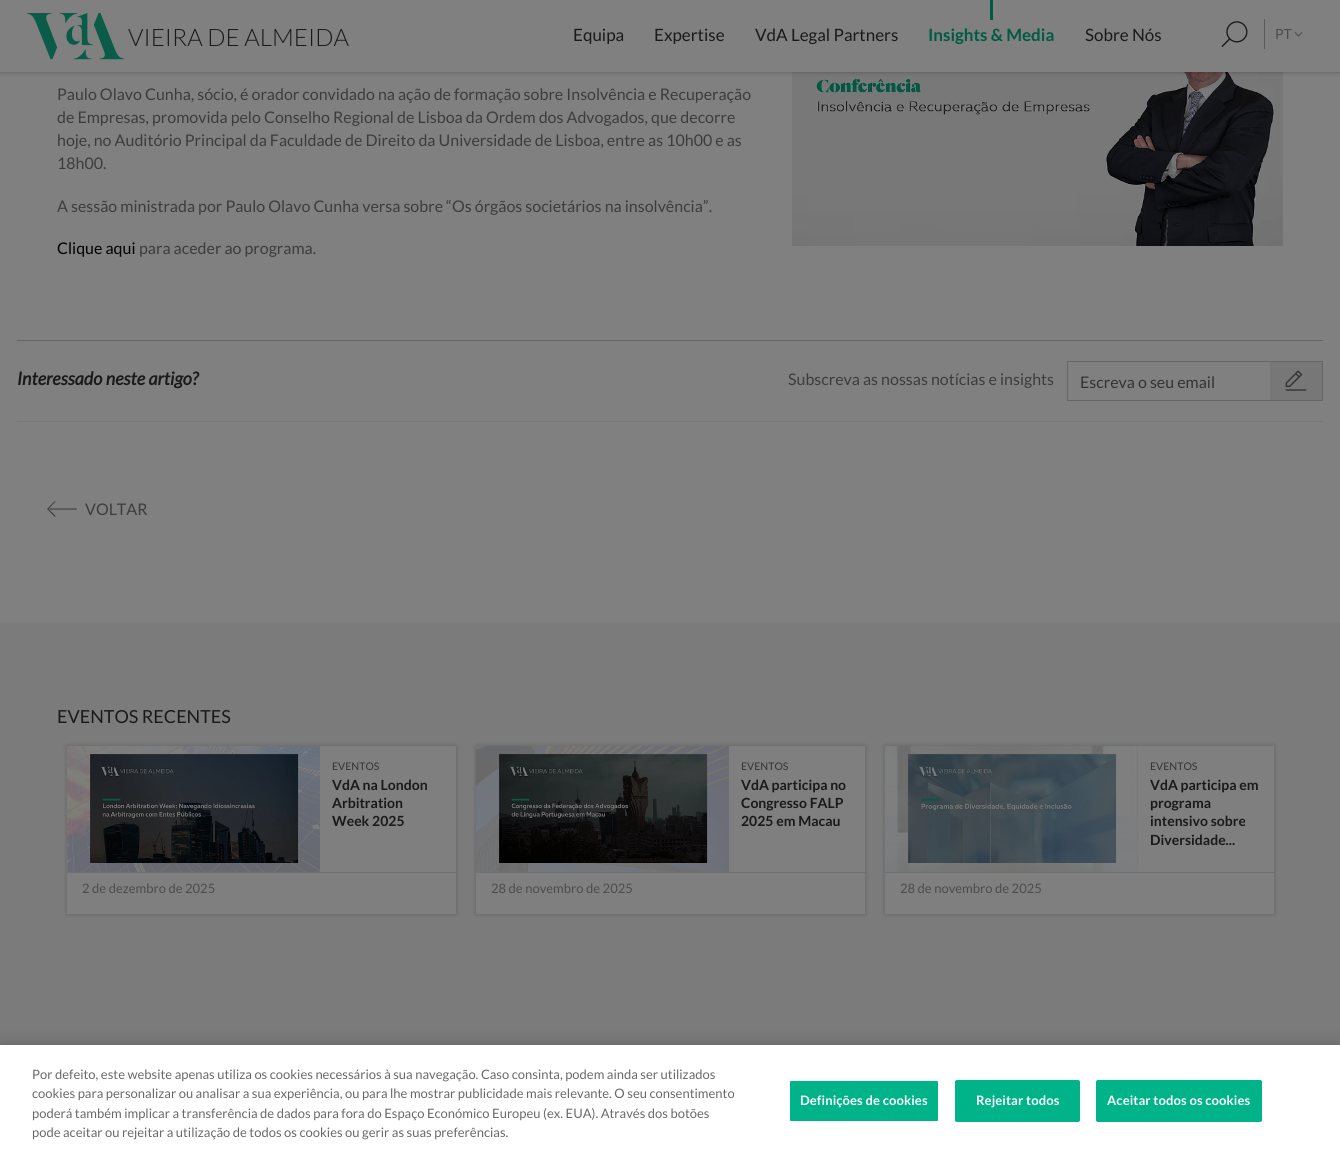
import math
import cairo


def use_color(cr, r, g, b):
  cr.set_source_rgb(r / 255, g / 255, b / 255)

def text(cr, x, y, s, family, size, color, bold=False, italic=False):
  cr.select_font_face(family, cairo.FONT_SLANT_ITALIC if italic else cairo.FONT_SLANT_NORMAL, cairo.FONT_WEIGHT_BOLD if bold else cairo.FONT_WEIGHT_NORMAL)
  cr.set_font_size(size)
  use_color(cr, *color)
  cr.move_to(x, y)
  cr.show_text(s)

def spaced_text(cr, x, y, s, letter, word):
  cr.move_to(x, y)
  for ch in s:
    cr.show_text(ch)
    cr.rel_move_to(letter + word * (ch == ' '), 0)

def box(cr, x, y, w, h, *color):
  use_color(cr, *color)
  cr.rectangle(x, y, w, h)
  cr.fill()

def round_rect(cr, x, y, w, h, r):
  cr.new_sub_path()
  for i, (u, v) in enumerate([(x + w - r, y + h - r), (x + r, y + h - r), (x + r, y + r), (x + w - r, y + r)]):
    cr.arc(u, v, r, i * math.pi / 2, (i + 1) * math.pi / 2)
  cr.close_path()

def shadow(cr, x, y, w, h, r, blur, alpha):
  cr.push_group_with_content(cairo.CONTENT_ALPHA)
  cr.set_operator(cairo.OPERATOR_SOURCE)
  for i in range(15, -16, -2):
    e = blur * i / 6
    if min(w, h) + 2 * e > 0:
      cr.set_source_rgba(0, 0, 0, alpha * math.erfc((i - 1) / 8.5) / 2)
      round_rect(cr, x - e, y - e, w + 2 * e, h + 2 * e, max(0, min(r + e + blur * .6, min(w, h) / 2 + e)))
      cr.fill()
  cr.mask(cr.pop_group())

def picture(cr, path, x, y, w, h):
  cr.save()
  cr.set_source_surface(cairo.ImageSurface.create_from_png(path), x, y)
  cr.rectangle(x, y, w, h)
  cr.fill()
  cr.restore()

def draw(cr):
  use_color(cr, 128, 128, 128)
  cr.paint()
  picture(cr, "img_04.png", 792, 72, 491, 174)
  use_color(cr, 0, 0, 0)
  shadow(cr, 0, 0, 1340, 72, 0, 2.5, 0.3)
  box(cr, 0, 0, 1340, 72, 128, 128, 128)
  picture(cr, "img_01.png", 27, 13, 97, 47)
  box(cr, 990, 0, 3, 20, 0, 90, 68)
  picture(cr, "img_02.png", 1221, 21, 27, 26)
  box(cr, 1264, 19, 1, 30, 90, 90, 90)
  picture(cr, "img_03.png", 1294, 32, 9, 5)
  box(cr, 17, 340, 1306, 1, 102, 102, 102)
  box(cr, 17, 421, 1306, 1, 119, 119, 119)
  cr.rectangle(1067.5, 361.5, 255, 39)
  use_color(cr, 102, 102, 102)
  cr.set_line_width(1)
  cr.stroke()
  box(cr, 1270, 362, 52, 38, 119, 119, 119)
  picture(cr, "img_05.png", 1285, 370, 22, 21)
  use_color(cr, 56, 56, 56)
  cr.set_fill_rule(cairo.FILL_RULE_EVEN_ODD)
  cr.new_path()
  cr.move_to(47, 509)
  cr.line_to(55, 501)
  cr.line_to(55.5, 501.5)
  cr.line_to(48.5, 509)
  cr.line_to(55.5, 516)
  cr.line_to(55, 517)
  cr.close_path()
  cr.move_to(77, 509.5)
  cr.line_to(49.5, 509.5)
  cr.line_to(49.5, 508.5)
  cr.line_to(77, 508.5)
  cr.close_path()
  cr.fill()
  box(cr, 0, 622, 1340, 423, 123, 123, 123)
  box(cr, 885, 746, 389, 168, 127, 127, 127)
  box(cr, 476, 746, 389, 168, 127, 127, 127)
  box(cr, 67, 746, 389, 168, 127, 127, 127)
  picture(cr, "img_07.png", 67, 746, 253, 126)
  cr.save()
  cr.new_path()
  cr.move_to(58, 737)
  cr.line_to(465, 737)
  cr.line_to(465, 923)
  cr.line_to(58, 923)
  cr.close_path()
  cr.move_to(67, 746)
  cr.line_to(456, 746)
  cr.line_to(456, 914)
  cr.line_to(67, 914)
  cr.close_path()
  cr.clip()
  use_color(cr, 0, 0, 0)
  shadow(cr, 67, 746, 389, 168, 0, 2.5, 0.2)
  cr.restore()
  picture(cr, "img_06.png", 90, 754, 209, 109)
  box(cr, 67, 872, 389, 1, 113, 113, 113)
  picture(cr, "img_09.png", 476, 746, 253, 126)
  cr.save()
  cr.new_path()
  cr.move_to(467, 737)
  cr.line_to(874, 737)
  cr.line_to(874, 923)
  cr.line_to(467, 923)
  cr.close_path()
  cr.move_to(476, 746)
  cr.line_to(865, 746)
  cr.line_to(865, 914)
  cr.line_to(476, 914)
  cr.close_path()
  cr.clip()
  use_color(cr, 0, 0, 0)
  shadow(cr, 476, 746, 389, 168, 0, 2.5, 0.2)
  cr.restore()
  picture(cr, "img_08.png", 499, 754, 209, 109)
  box(cr, 476, 872, 389, 1, 113, 113, 113)
  picture(cr, "img_11.png", 885, 746, 253, 126)
  cr.save()
  cr.new_path()
  cr.move_to(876, 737)
  cr.line_to(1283, 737)
  cr.line_to(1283, 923)
  cr.line_to(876, 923)
  cr.close_path()
  cr.move_to(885, 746)
  cr.line_to(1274, 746)
  cr.line_to(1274, 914)
  cr.line_to(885, 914)
  cr.close_path()
  cr.clip()
  use_color(cr, 0, 0, 0)
  shadow(cr, 885, 746, 389, 168, 0, 2.5, 0.2)
  cr.restore()
  picture(cr, "img_10.png", 908, 754, 209, 109)
  box(cr, 885, 872, 389, 1, 113, 113, 113)
  use_color(cr, 0, 0, 0)
  shadow(cr, 0, 1045, 1340, 108, 0, 9, 0.2)
  box(cr, 0, 1045, 1340, 108, 255, 255, 255)
  use_color(cr, 0, 179, 136)
  round_rect(cr, 789.5, 1080.5, 149, 41, 1.5)
  cr.fill_preserve()
  use_color(cr, 255, 255, 255)
  cr.stroke()
  use_color(cr, 0, 179, 136)
  round_rect(cr, 955.5, 1080.5, 124, 41, 1.5)
  cr.fill_preserve()
  cr.stroke()
  round_rect(cr, 1096.5, 1080.5, 165, 41, 1.5)
  cr.fill_preserve()
  cr.stroke()
  text(cr, 128, 46, "VIEIRA DE ALMEIDA", "Lato Light", 24, (26, 26, 26))
  text(cr, 573, 41, "Equipa", "Lato", 17, (26, 26, 26))
  text(cr, 654, 41, "Expertise", "Lato", 17, (26, 26, 26))
  text(cr, 755, 41, "VdA Legal Partners", "Lato", 17, (26, 26, 26))
  text(cr, 928, 41, "Insights & Media", "Lato", 17, (0, 90, 68), bold=True)
  text(cr, 1085, 41, "Sobre Nós", "Lato", 17, (26, 26, 26))
  text(cr, 1275, 39, "PT", "Lato", 14, (76, 76, 76))
  text(cr, 57, 100, "Paulo Olavo Cunha, sócio, é orador convidado na ação de formação sobre Insolvência e Recuperação", "Lato", 16, (60, 60, 60))
  text(cr, 57, 123, "de Empresas, promovida pelo Conselho Regional de Lisboa da Ordem dos Advogados, que decorre", "Lato", 16, (60, 60, 60))
  text(cr, 57, 146, "hoje, no Auditório Principal da Faculdade de Direito da Universidade de Lisboa, entre as 10h00 e as", "Lato", 16, (60, 60, 60))
  text(cr, 57, 169, "18h00.", "Lato", 16, (60, 60, 60))
  text(cr, 57, 212, "A sessão ministrada por Paulo Olavo Cunha versa sobre “Os órgãos societários na insolvência”.", "Lato", 16, (60, 60, 60))
  text(cr, 57, 254, "Clique aqui", "Lato", 16, (0, 0, 0))
  text(cr, 139, 254, "para aceder ao programa.", "Lato", 16, (60, 60, 60))
  text(cr, 17, 385, "Interessado neste artigo?", "Lato", 18, (26, 26, 26), bold=True, italic=True)
  text(cr, 788, 385, "Subscreva as nossas notícias e insights", "Lato", 16, (60, 60, 60))
  text(cr, 1080, 388, "Escreva o seu email", "Lato", 16, (51, 51, 51))
  text(cr, 85, 515, "VOLTAR", "Lato", 16, (60, 60, 60))
  text(cr, 57, 723, "EVENTOS RECENTES", "Lato", 18, (26, 26, 26))
  text(cr, 332, 770, "EVENTOS", "Lato", 10.5, (51, 51, 51))
  text(cr, 332, 790, "VdA na London", "Lato", 14, (26, 26, 26), bold=True)
  text(cr, 332, 808, "Arbitration", "Lato", 14, (26, 26, 26), bold=True)
  text(cr, 332, 826, "Week 2025", "Lato", 14, (26, 26, 26), bold=True)
  text(cr, 82, 893, "2 de dezembro de 2025", "Lato", 13, (76, 76, 76))
  text(cr, 741, 770, "EVENTOS", "Lato", 10.5, (51, 51, 51))
  text(cr, 741, 790, "VdA participa no", "Lato", 14, (26, 26, 26), bold=True)
  text(cr, 741, 808, "Congresso FALP", "Lato", 14, (26, 26, 26), bold=True)
  text(cr, 741, 826, "2025 em Macau", "Lato", 14, (26, 26, 26), bold=True)
  text(cr, 491, 893, "28 de novembro de 2025", "Lato", 13, (76, 76, 76))
  text(cr, 1150, 770, "EVENTOS", "Lato", 10.5, (51, 51, 51))
  text(cr, 1150, 790, "VdA participa em", "Lato", 14, (26, 26, 26), bold=True)
  text(cr, 1150, 808, "programa", "Lato", 14, (26, 26, 26), bold=True)
  text(cr, 1150, 826, "intensivo sobre", "Lato", 14, (26, 26, 26), bold=True)
  text(cr, 1150, 845, "Diversidade...", "Lato", 14, (26, 26, 26), bold=True)
  text(cr, 900, 893, "28 de novembro de 2025", "Lato", 13, (76, 76, 76))
  text(cr, 32, 1079, "Por defeito, este website apenas utiliza os cookies necessários à sua navegação. Caso consinta, podem ainda ser utilizados", "Lato", 13, (105, 105, 105))
  text(cr, 32, 1098, "cookies para personalizar ou analisar a sua experiência, ou para lhe mostrar publicidade mais relevante. O seu consentimento", "Lato", 13, (105, 105, 105))
  text(cr, 32, 1118, "poderá também implicar a transferência de dados para fora do Espaço Económico Europeu (ex. EUA). Através dos botões", "Lato", 13, (105, 105, 105))
  text(cr, 32, 1137, "pode aceitar ou rejeitar a utilização de todos os cookies ou gerir as suas preferências.", "Lato", 13, (105, 105, 105))
  cr.select_font_face("Lato", cairo.FONT_SLANT_NORMAL, cairo.FONT_WEIGHT_BOLD)
  use_color(cr, 255, 255, 255)
  spaced_text(cr, 800, 1105, "Definições de cookies", 0.1, 0)
  spaced_text(cr, 976, 1105, "Rejeitar todos", 0.1, 0)
  spaced_text(cr, 1107, 1105, "Aceitar todos os cookies", 0.1, 0)


surface = cairo.ImageSurface(cairo.FORMAT_RGB24, 1340, 1153)
cr = cairo.Context(surface)
options = cairo.FontOptions()
options.set_hint_metrics(cairo.HINT_METRICS_OFF)
options.set_hint_style(cairo.HINT_STYLE_NONE)
cr.set_font_options(options)
cr.set_miter_limit(4)
draw(cr)
surface.write_to_png("out.png")
